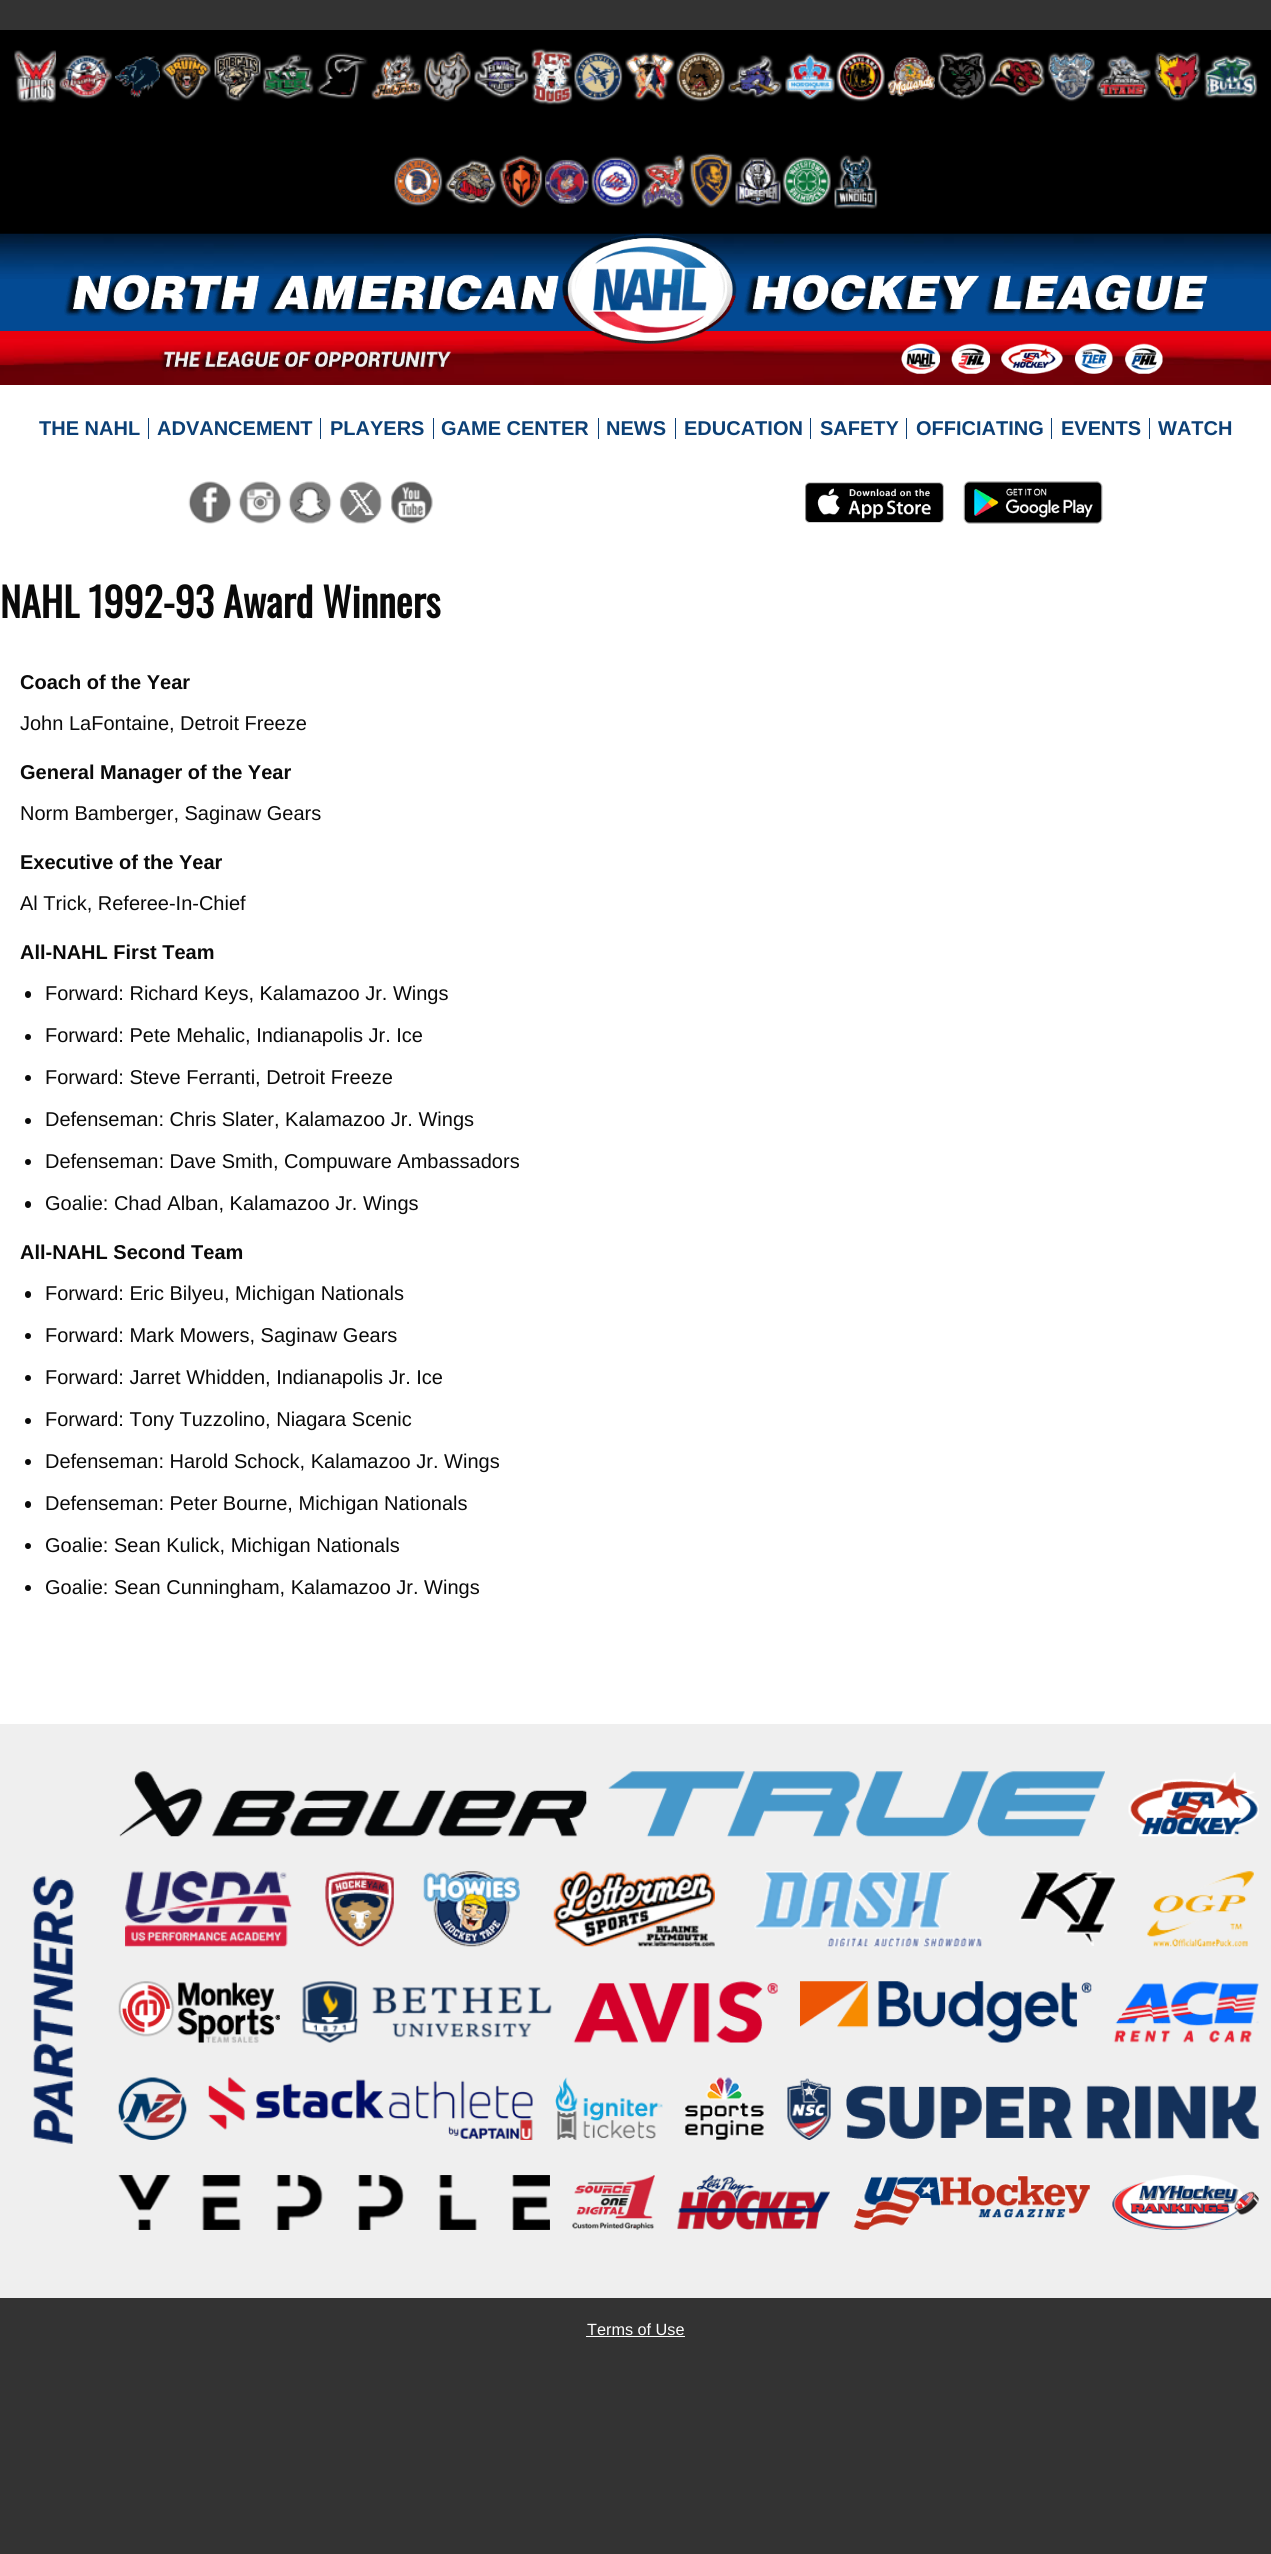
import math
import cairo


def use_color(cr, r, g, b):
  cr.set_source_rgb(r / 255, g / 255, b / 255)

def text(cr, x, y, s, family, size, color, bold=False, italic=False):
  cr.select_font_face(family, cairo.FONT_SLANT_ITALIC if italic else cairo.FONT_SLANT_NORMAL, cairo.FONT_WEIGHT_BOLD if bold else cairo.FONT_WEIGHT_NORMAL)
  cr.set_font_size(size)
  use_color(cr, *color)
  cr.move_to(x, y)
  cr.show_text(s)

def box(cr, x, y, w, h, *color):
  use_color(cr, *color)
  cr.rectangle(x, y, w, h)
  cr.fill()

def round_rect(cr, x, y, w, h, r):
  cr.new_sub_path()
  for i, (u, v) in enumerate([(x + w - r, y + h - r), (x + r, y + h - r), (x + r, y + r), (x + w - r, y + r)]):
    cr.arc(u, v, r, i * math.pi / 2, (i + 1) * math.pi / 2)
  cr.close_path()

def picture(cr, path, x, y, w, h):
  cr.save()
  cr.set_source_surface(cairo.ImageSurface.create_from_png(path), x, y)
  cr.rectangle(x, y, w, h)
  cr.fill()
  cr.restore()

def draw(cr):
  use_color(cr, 51, 51, 51)
  cr.paint()
  box(cr, 0, 385, 1271, 1339, 255, 255, 255)
  box(cr, 0, 30, 1271, 204, 0, 0, 0)
  picture(cr, "img_01.png", 14, 50, 43, 53)
  picture(cr, "img_02.png", 59, 55, 54, 44)
  picture(cr, "img_03.png", 115, 56, 45, 42)
  picture(cr, "img_04.png", 161, 52, 50, 48)
  picture(cr, "img_05.png", 214, 51, 47, 51)
  picture(cr, "img_06.png", 262, 54, 52, 45)
  picture(cr, "img_07.png", 317, 52, 51, 47)
  picture(cr, "img_08.png", 371, 54, 52, 46)
  picture(cr, "img_09.png", 424, 51, 47, 51)
  picture(cr, "img_10.png", 474, 56, 55, 43)
  picture(cr, "img_11.png", 531, 48, 42, 57)
  picture(cr, "img_12.png", 574, 51, 49, 51)
  picture(cr, "img_13.png", 625, 52, 50, 49)
  picture(cr, "img_14.png", 676, 51, 49, 51)
  picture(cr, "img_15.png", 727, 55, 56, 44)
  picture(cr, "img_16.png", 785, 53, 50, 47)
  picture(cr, "img_17.png", 836, 51, 49, 51)
  picture(cr, "img_18.png", 887, 57, 48, 40)
  picture(cr, "img_19.png", 937, 52, 49, 49)
  picture(cr, "img_20.png", 987, 56, 58, 41)
  picture(cr, "img_21.png", 1047, 52, 48, 50)
  picture(cr, "img_22.png", 1096, 55, 55, 44)
  picture(cr, "img_23.png", 1154, 52, 47, 50)
  picture(cr, "img_24.png", 1204, 55, 54, 44)
  picture(cr, "img_25.png", 394, 156, 49, 51)
  picture(cr, "img_26.png", 445, 159, 52, 45)
  picture(cr, "img_27.png", 499, 155, 44, 54)
  picture(cr, "img_28.png", 545, 159, 44, 45)
  picture(cr, "img_29.png", 591, 156, 49, 51)
  picture(cr, "img_30.png", 641, 154, 44, 55)
  picture(cr, "img_31.png", 689, 153, 44, 55)
  picture(cr, "img_32.png", 735, 157, 46, 51)
  picture(cr, "img_33.png", 782, 156, 49, 51)
  picture(cr, "img_34.png", 834, 154, 44, 55)
  box(cr, 0, 279, 1271, 52, 3, 74, 147)
  picture(cr, "img_35.png", 0, 233, 1271, 46)
  picture(cr, "img_37.png", 64, 274, 1144, 43)
  box(cr, 0, 331, 1271, 8, 234, 0, 14)
  picture(cr, "img_38.png", 0, 339, 1271, 46)
  picture(cr, "img_36.png", 562, 233, 175, 111)
  picture(cr, "img_39.png", 159, 350, 293, 22)
  picture(cr, "img_40.png", 901, 343, 39, 31)
  picture(cr, "img_41.png", 951, 343, 39, 31)
  picture(cr, "img_42.png", 1001, 343, 62, 31)
  picture(cr, "img_43.png", 1075, 343, 38, 31)
  picture(cr, "img_44.png", 1125, 343, 38, 31)
  box(cr, 148, 418, 1, 21, 12, 64, 118)
  box(cr, 320, 418, 1, 21, 12, 64, 118)
  box(cr, 433, 418, 1, 21, 12, 64, 118)
  box(cr, 598, 418, 1, 21, 12, 64, 118)
  box(cr, 675, 418, 1, 21, 12, 64, 118)
  box(cr, 810, 418, 1, 21, 12, 64, 118)
  box(cr, 906, 418, 1, 21, 12, 64, 118)
  box(cr, 1051, 418, 1, 21, 12, 64, 118)
  box(cr, 1149, 418, 1, 21, 12, 64, 118)
  picture(cr, "img_45.png", 188, 481, 44, 43)
  picture(cr, "img_46.png", 238, 481, 44, 43)
  picture(cr, "img_47.png", 288, 481, 44, 43)
  picture(cr, "img_48.png", 339, 481, 43, 43)
  picture(cr, "img_49.png", 391, 481, 42, 43)
  picture(cr, "img_50.png", 805, 482, 139, 41)
  picture(cr, "img_51.png", 963, 481, 140, 43)
  use_color(cr, 10, 10, 10)
  round_rect(cr, 25, 991, 6, 7, 3)
  cr.fill()
  cr.arc(28, 1037, 3, 0, 2 * math.pi)
  cr.fill()
  cr.arc(28, 1078, 3, 0, 2 * math.pi)
  cr.fill()
  cr.arc(28, 1121, 3, 0, 2 * math.pi)
  cr.fill()
  cr.arc(28, 1162, 3, 0, 2 * math.pi)
  cr.fill()
  round_rect(cr, 25, 1201, 6, 7, 3)
  cr.fill()
  round_rect(cr, 25, 1291, 6, 7, 3)
  cr.fill()
  cr.arc(28, 1336, 3, 0, 2 * math.pi)
  cr.fill()
  cr.arc(28, 1378, 3, 0, 2 * math.pi)
  cr.fill()
  cr.arc(28, 1421, 3, 0, 2 * math.pi)
  cr.fill()
  cr.arc(28, 1462, 3, 0, 2 * math.pi)
  cr.fill()
  round_rect(cr, 25, 1501, 6, 7, 3)
  cr.fill()
  cr.arc(28, 1546, 3, 0, 2 * math.pi)
  cr.fill()
  cr.arc(28, 1588, 3, 0, 2 * math.pi)
  cr.fill()
  box(cr, 0, 1724, 1271, 574, 239, 239, 239)
  picture(cr, "img_52.png", 32, 1876, 42, 268)
  picture(cr, "img_53.png", 119, 1771, 468, 66)
  picture(cr, "img_54.png", 608, 1771, 497, 66)
  picture(cr, "img_55.png", 1128, 1772, 131, 65)
  picture(cr, "img_56.png", 125, 1871, 167, 76)
  picture(cr, "img_57.png", 325, 1871, 69, 76)
  picture(cr, "img_58.png", 423, 1871, 97, 76)
  picture(cr, "img_59.png", 553, 1871, 162, 76)
  picture(cr, "img_60.png", 754, 1871, 228, 76)
  picture(cr, "img_61.png", 1019, 1871, 97, 75)
  picture(cr, "img_62.png", 1147, 1871, 107, 76)
  picture(cr, "img_63.png", 118, 1981, 162, 62)
  picture(cr, "img_64.png", 302, 1981, 250, 62)
  picture(cr, "img_65.png", 573, 1981, 205, 62)
  picture(cr, "img_66.png", 800, 1981, 292, 62)
  picture(cr, "img_67.png", 1113, 1981, 146, 62)
  picture(cr, "img_68.png", 118, 2077, 69, 63)
  picture(cr, "img_69.png", 208, 2077, 325, 63)
  picture(cr, "img_70.png", 555, 2077, 108, 63)
  picture(cr, "img_71.png", 685, 2077, 79, 63)
  picture(cr, "img_72.png", 787, 2078, 472, 62)
  picture(cr, "img_73.png", 118, 2175, 432, 55)
  picture(cr, "img_74.png", 572, 2175, 83, 55)
  picture(cr, "img_75.png", 677, 2175, 153, 55)
  picture(cr, "img_76.png", 853, 2175, 237, 55)
  picture(cr, "img_77.png", 1112, 2175, 147, 55)
  box(cr, 586, 2336, 99, 1, 255, 255, 255)
  text(cr, 39, 435, "THE NAHL", "Liberation Sans", 20, (12, 64, 118), bold=True)
  text(cr, 157, 435, "ADVANCEMENT", "Liberation Sans", 20, (12, 64, 118), bold=True)
  text(cr, 330, 435, "PLAYERS", "Liberation Sans", 20, (12, 64, 118), bold=True)
  text(cr, 441, 435, "GAME CENTER", "Liberation Sans", 20, (12, 64, 118), bold=True)
  text(cr, 606, 435, "NEWS", "Liberation Sans", 20, (12, 64, 118), bold=True)
  text(cr, 684, 435, "EDUCATION", "Liberation Sans", 20, (12, 64, 118), bold=True)
  text(cr, 820, 435, "SAFETY", "Liberation Sans", 20, (12, 64, 118), bold=True)
  text(cr, 916, 435, "OFFICIATING", "Liberation Sans", 20, (12, 64, 118), bold=True)
  text(cr, 1061, 435, "EVENTS", "Liberation Sans", 20, (12, 64, 118), bold=True)
  text(cr, 1158, 435, "WATCH", "Liberation Sans", 20, (12, 64, 118), bold=True)
  text(cr, 0, 618, "NAHL 1992-93 Award Winners", "Oswald", 40, (10, 10, 10), bold=True)
  text(cr, 20, 689, "Coach of the Year", "Liberation Sans", 20, (10, 10, 10), bold=True)
  text(cr, 20, 730, "John LaFontaine, Detroit Freeze", "Liberation Sans", 20, (10, 10, 10))
  text(cr, 20, 779, "General Manager of the Year", "Liberation Sans", 20, (10, 10, 10), bold=True)
  text(cr, 20, 820, "Norm Bamberger, Saginaw Gears", "Liberation Sans", 20, (10, 10, 10))
  text(cr, 20, 869, "Executive of the Year", "Liberation Sans", 20, (10, 10, 10), bold=True)
  text(cr, 20, 910, "Al Trick, Referee-In-Chief", "Liberation Sans", 20, (10, 10, 10))
  text(cr, 20, 959, "All-NAHL First Team", "Liberation Sans", 20, (10, 10, 10), bold=True)
  text(cr, 45, 1000, "Forward: Richard Keys, Kalamazoo Jr. Wings", "Liberation Sans", 20, (10, 10, 10))
  text(cr, 45, 1042, "Forward: Pete Mehalic, Indianapolis Jr. Ice", "Liberation Sans", 20, (10, 10, 10))
  text(cr, 45, 1084, "Forward: Steve Ferranti, Detroit Freeze", "Liberation Sans", 20, (10, 10, 10))
  text(cr, 45, 1126, "Defenseman: Chris Slater, Kalamazoo Jr. Wings", "Liberation Sans", 20, (10, 10, 10))
  text(cr, 45, 1168, "Defenseman: Dave Smith, Compuware Ambassadors", "Liberation Sans", 20, (10, 10, 10))
  text(cr, 45, 1210, "Goalie: Chad Alban, Kalamazoo Jr. Wings", "Liberation Sans", 20, (10, 10, 10))
  text(cr, 20, 1259, "All-NAHL Second Team", "Liberation Sans", 20, (10, 10, 10), bold=True)
  text(cr, 45, 1300, "Forward: Eric Bilyeu, Michigan Nationals", "Liberation Sans", 20, (10, 10, 10))
  text(cr, 45, 1342, "Forward: Mark Mowers, Saginaw Gears", "Liberation Sans", 20, (10, 10, 10))
  text(cr, 45, 1384, "Forward: Jarret Whidden, Indianapolis Jr. Ice", "Liberation Sans", 20, (10, 10, 10))
  text(cr, 45, 1426, "Forward: Tony Tuzzolino, Niagara Scenic", "Liberation Sans", 20, (10, 10, 10))
  text(cr, 45, 1468, "Defenseman: Harold Schock, Kalamazoo Jr. Wings", "Liberation Sans", 20, (10, 10, 10))
  text(cr, 45, 1510, "Defenseman: Peter Bourne, Michigan Nationals", "Liberation Sans", 20, (10, 10, 10))
  text(cr, 45, 1552, "Goalie: Sean Kulick, Michigan Nationals", "Liberation Sans", 20, (10, 10, 10))
  text(cr, 45, 1594, "Goalie: Sean Cunningham, Kalamazoo Jr. Wings", "Liberation Sans", 20, (10, 10, 10))
  text(cr, 587, 2335, "Terms of Use", "Liberation Sans", 16.25, (255, 255, 255))


surface = cairo.ImageSurface(cairo.FORMAT_RGB24, 1271, 2554)
cr = cairo.Context(surface)
options = cairo.FontOptions()
options.set_hint_metrics(cairo.HINT_METRICS_OFF)
options.set_hint_style(cairo.HINT_STYLE_NONE)
cr.set_font_options(options)
cr.set_miter_limit(4)
draw(cr)
surface.write_to_png("out.png")
